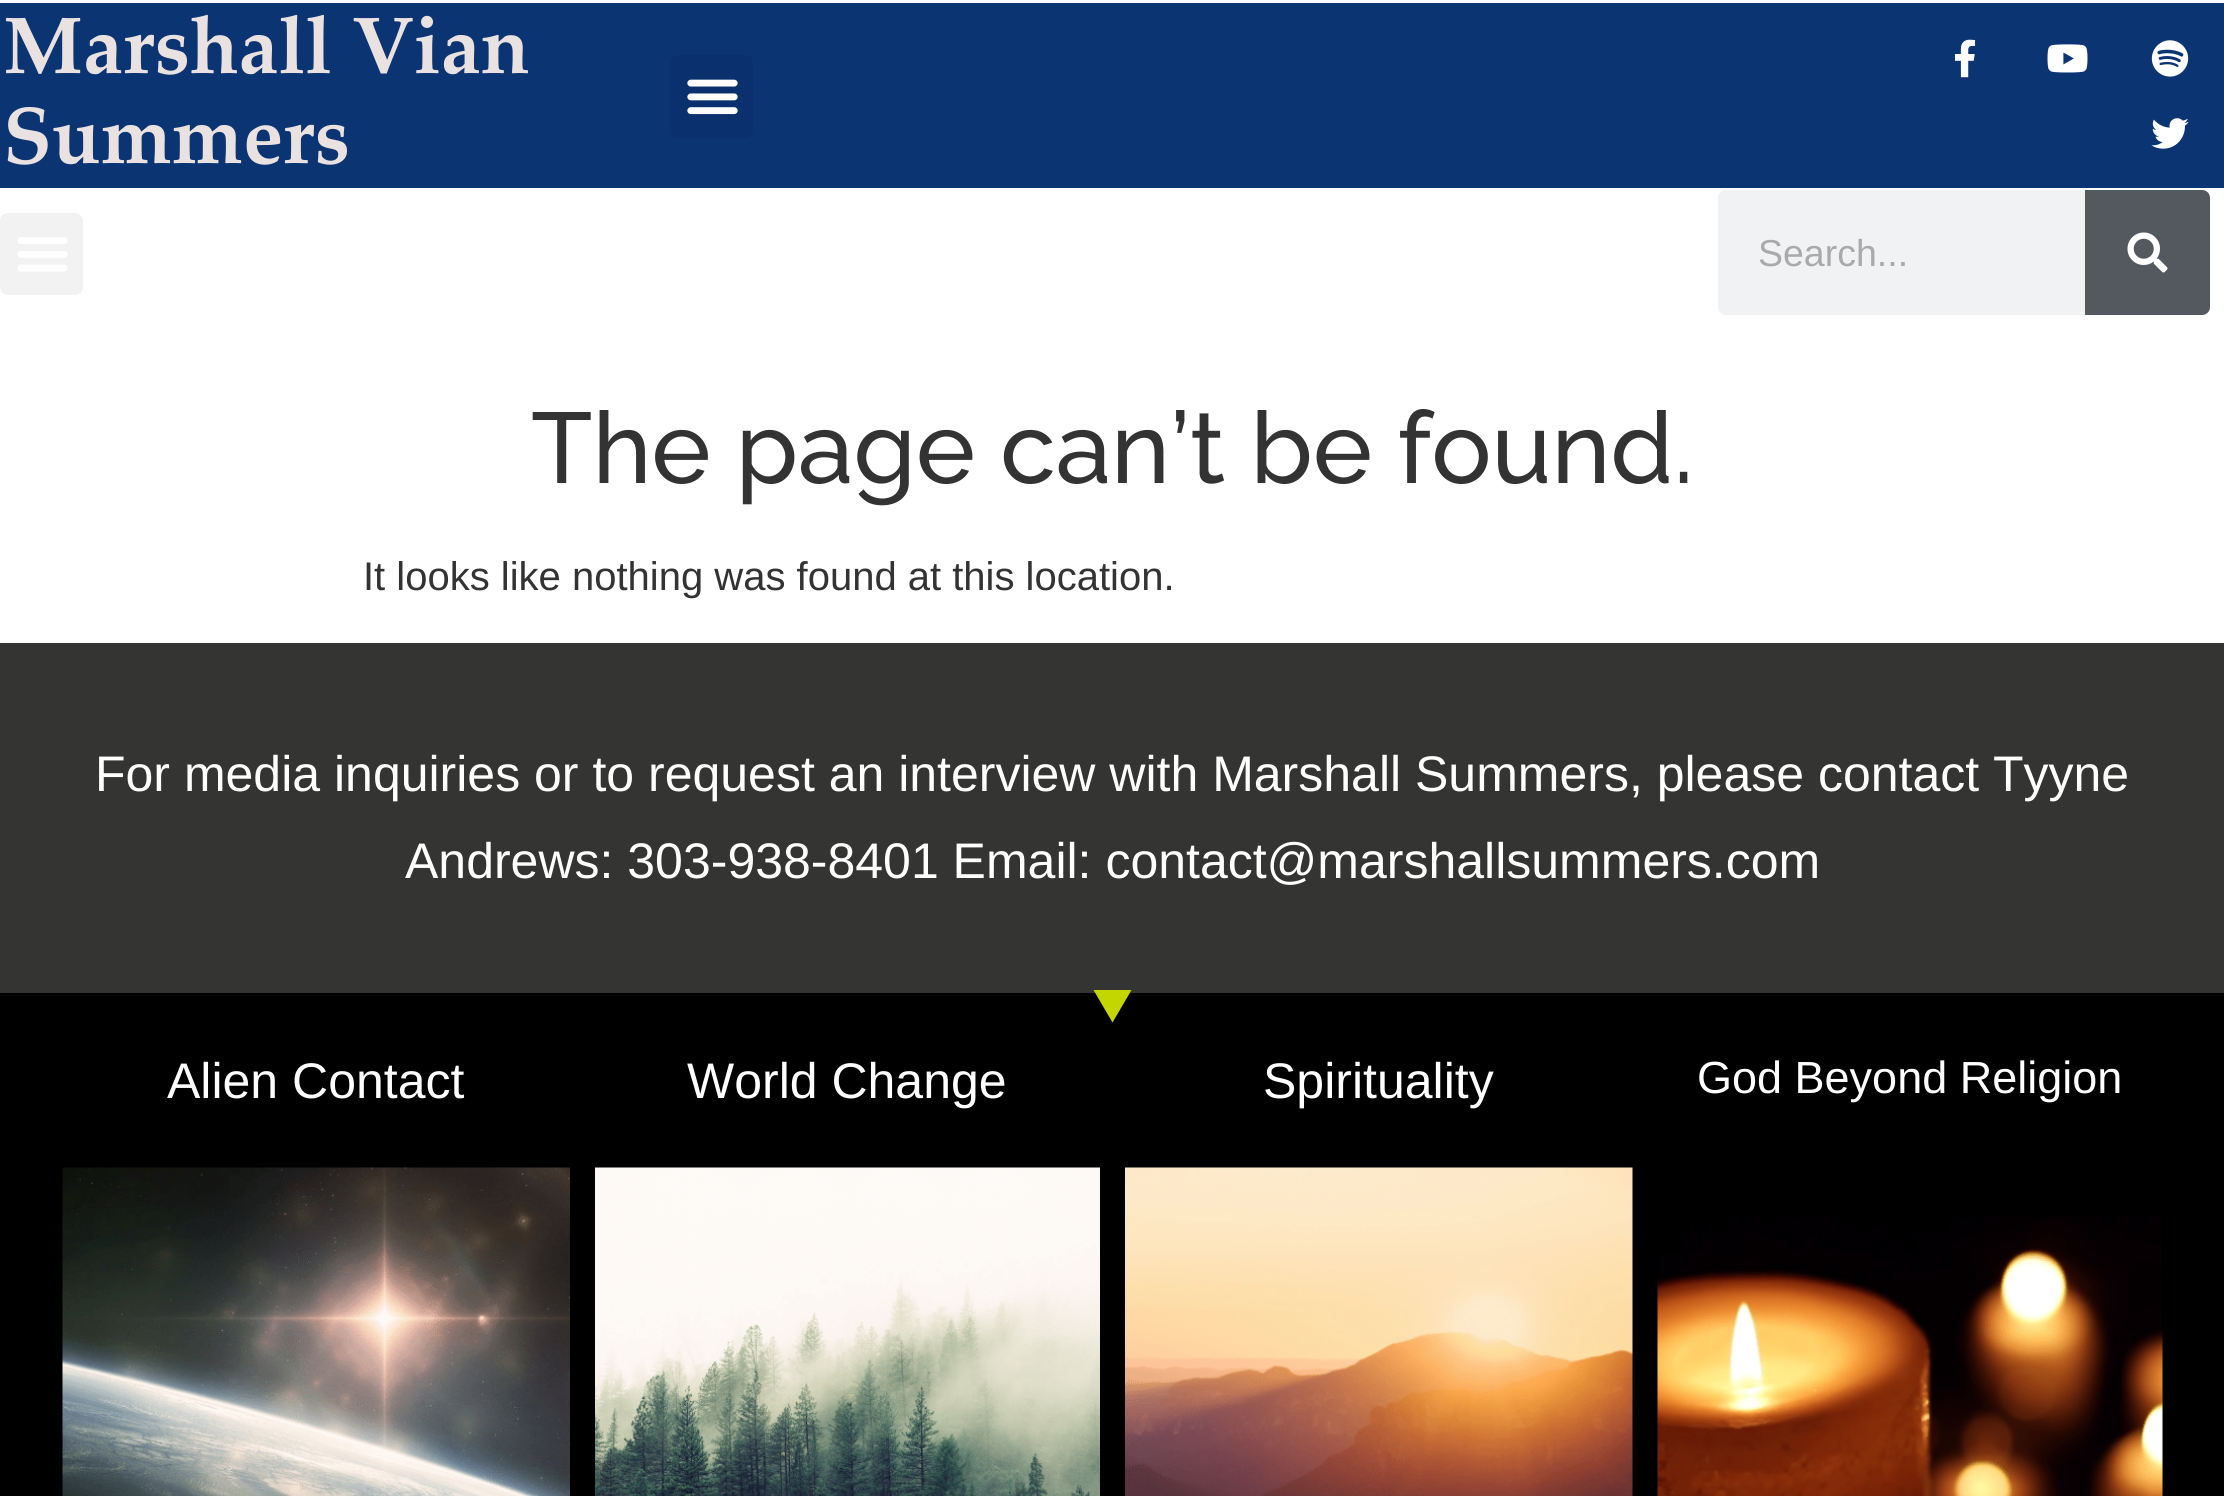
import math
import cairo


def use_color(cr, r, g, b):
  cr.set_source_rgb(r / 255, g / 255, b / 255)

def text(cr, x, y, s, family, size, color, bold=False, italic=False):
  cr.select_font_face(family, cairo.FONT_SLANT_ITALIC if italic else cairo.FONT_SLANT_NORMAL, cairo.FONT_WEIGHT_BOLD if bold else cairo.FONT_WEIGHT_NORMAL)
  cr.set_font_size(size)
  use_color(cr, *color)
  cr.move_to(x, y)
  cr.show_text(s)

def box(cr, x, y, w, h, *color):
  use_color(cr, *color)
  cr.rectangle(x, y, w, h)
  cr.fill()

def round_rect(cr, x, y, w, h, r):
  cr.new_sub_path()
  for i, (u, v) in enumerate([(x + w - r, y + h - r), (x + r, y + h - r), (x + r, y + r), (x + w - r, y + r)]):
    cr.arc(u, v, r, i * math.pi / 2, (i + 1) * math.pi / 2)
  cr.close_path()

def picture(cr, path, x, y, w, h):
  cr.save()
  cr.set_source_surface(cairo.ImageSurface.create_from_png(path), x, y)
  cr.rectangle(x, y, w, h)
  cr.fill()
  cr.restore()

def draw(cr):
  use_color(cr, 255, 255, 255)
  cr.paint()
  box(cr, 0, 3, 2224, 185, 11, 52, 115)
  use_color(cr, 10, 49, 109)
  round_rect(cr, 670, 55, 83, 83, 8)
  cr.fill()
  picture(cr, "img_01.png", 687, 79, 51, 36)
  picture(cr, "img_02.png", 1954, 39, 22, 39)
  picture(cr, "img_03.png", 2047, 44, 41, 29)
  picture(cr, "img_04.png", 2151, 40, 38, 37)
  picture(cr, "img_05.png", 2151, 118, 38, 31)
  use_color(cr, 242, 242, 242)
  round_rect(cr, 0, 213, 83, 82, 8)
  cr.fill()
  picture(cr, "img_06.png", 17, 237, 51, 35)
  use_color(cr, 241, 242, 243)
  round_rect(cr, 1718, 190, 492, 125, 8)
  cr.fill()
  use_color(cr, 84, 89, 95)
  cr.new_path()
  cr.move_to(2085, 190)
  cr.line_to(2202, 190)
  cr.curve_to(2206.5, 190, 2210, 193.5, 2210, 198)
  cr.line_to(2210, 307)
  cr.curve_to(2210, 311.5, 2206.5, 315, 2202, 315)
  cr.line_to(2085, 315)
  cr.close_path()
  cr.fill()
  picture(cr, "img_07.png", 2127, 232, 41, 41)
  box(cr, 0, 643, 2224, 350, 52, 52, 51)
  box(cr, 0, 993, 2224, 503, 0, 0, 0)
  use_color(cr, 196, 214, 2)
  cr.new_path()
  cr.move_to(1112.5, 1022.5)
  cr.line_to(1093.5, 990)
  cr.line_to(1131.5, 990)
  cr.close_path()
  cr.fill()
  picture(cr, "img_08.png", 62, 1167, 508, 329)
  picture(cr, "img_09.png", 595, 1167, 505, 329)
  picture(cr, "img_10.png", 1125, 1167, 508, 329)
  picture(cr, "img_11.png", 1657, 1215, 506, 281)
  text(cr, 3, 73, "Marshall Vian", "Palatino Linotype", 80, (234, 225, 225), bold=True)
  text(cr, 3, 163, "Summers", "Palatino Linotype", 80, (234, 225, 225), bold=True)
  text(cr, 1758, 266, "Search...", "Liberation Sans", 37.5, (170, 170, 170))
  text(cr, 531, 483, "The page can’t be found.", "Raleway Medium", 100, (51, 51, 51))
  text(cr, 363, 590, "It looks like nothing was found at this location.", "Liberation Sans", 40, (51, 51, 51))
  text(cr, 95, 791, "For media inquiries or to request an interview with Marshall Summers, please contact Tyyne", "Liberation Sans", 50, (255, 255, 255))
  text(cr, 405, 878, "Andrews: 303-938-8401 Email: contact@marshallsummers.com", "Liberation Sans", 50, (255, 255, 255))
  text(cr, 167, 1098, "Alien Contact", "Liberation Sans", 50, (255, 255, 255))
  text(cr, 687, 1098, "World Change", "Liberation Sans", 50, (255, 255, 255))
  text(cr, 1263, 1098, "Spirituality", "Liberation Sans", 50, (255, 255, 255))
  text(cr, 1697, 1093, "God Beyond Religion", "Liberation Sans", 45, (255, 255, 255))


surface = cairo.ImageSurface(cairo.FORMAT_RGB24, 2224, 1496)
cr = cairo.Context(surface)
options = cairo.FontOptions()
options.set_hint_metrics(cairo.HINT_METRICS_OFF)
options.set_hint_style(cairo.HINT_STYLE_NONE)
cr.set_font_options(options)
cr.set_miter_limit(4)
draw(cr)
surface.write_to_png("out.png")
